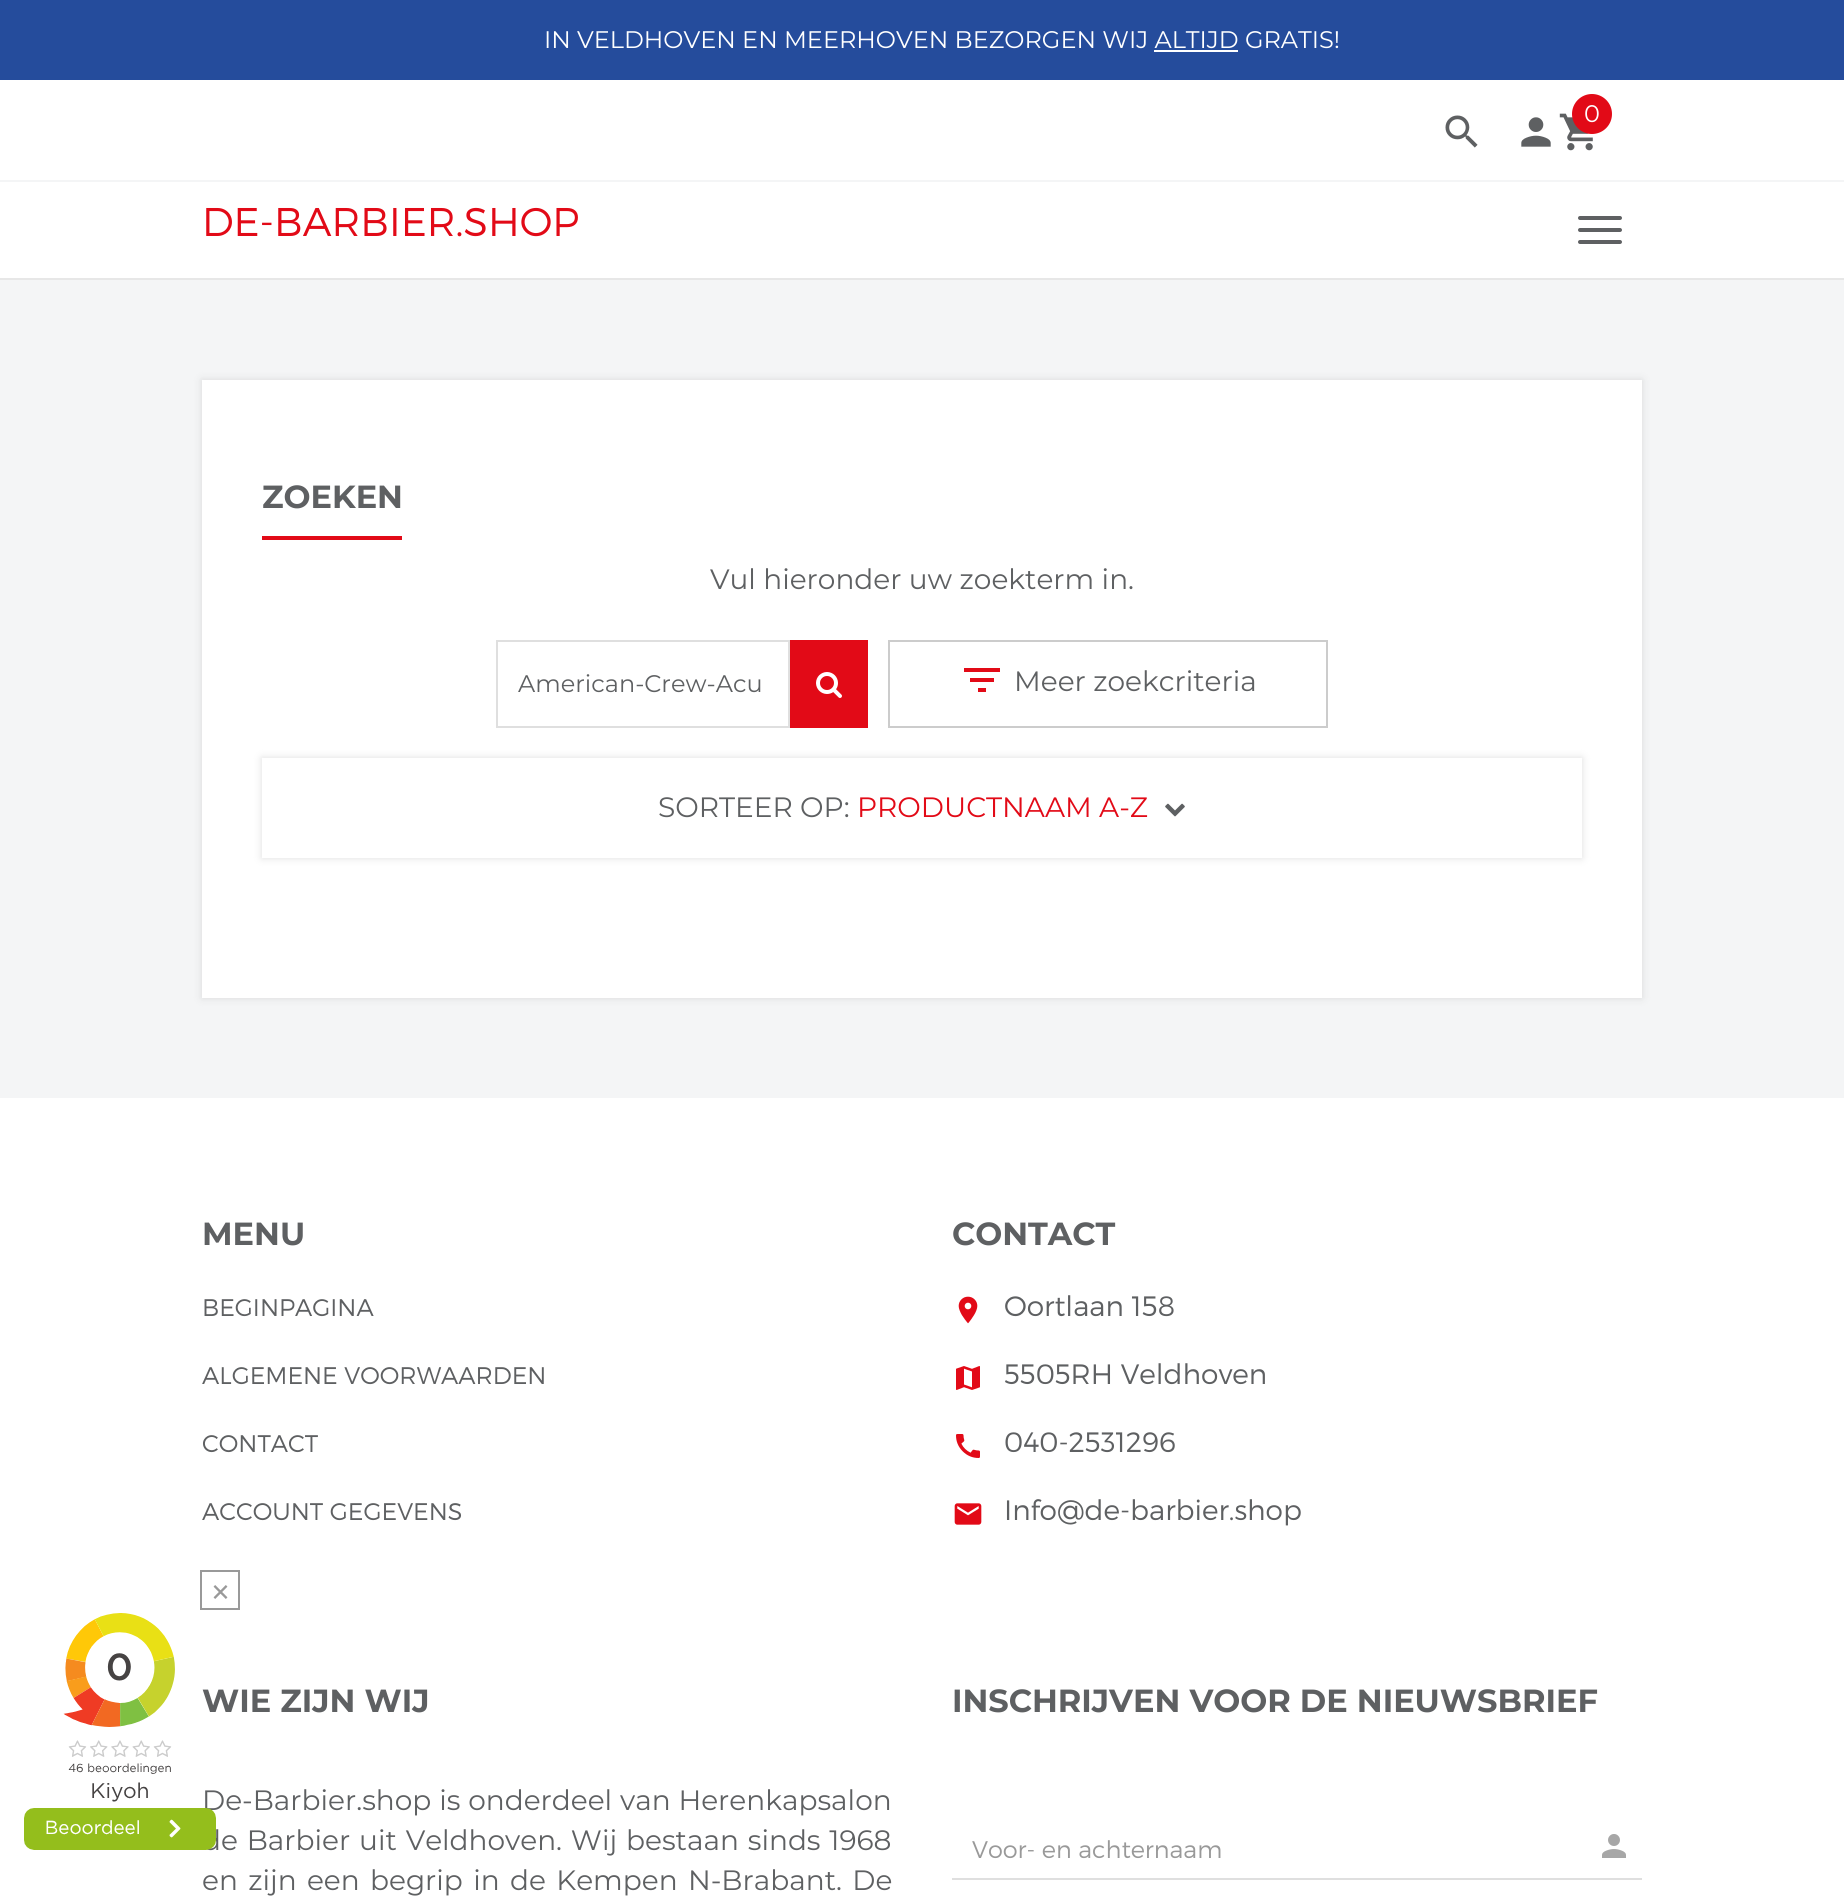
import math
import cairo


def use_color(cr, r, g, b):
  cr.set_source_rgb(r / 255, g / 255, b / 255)

def text(cr, x, y, s, family, size, color, bold=False, italic=False):
  cr.select_font_face(family, cairo.FONT_SLANT_ITALIC if italic else cairo.FONT_SLANT_NORMAL, cairo.FONT_WEIGHT_BOLD if bold else cairo.FONT_WEIGHT_NORMAL)
  cr.set_font_size(size)
  use_color(cr, *color)
  cr.move_to(x, y)
  cr.show_text(s)

def spaced_text(cr, x, y, s, letter, word):
  cr.move_to(x, y)
  for ch in s:
    cr.show_text(ch)
    cr.rel_move_to(letter + word * (ch == ' '), 0)

def box(cr, x, y, w, h, *color):
  use_color(cr, *color)
  cr.rectangle(x, y, w, h)
  cr.fill()

def round_rect(cr, x, y, w, h, r):
  cr.new_sub_path()
  for i, (u, v) in enumerate([(x + w - r, y + h - r), (x + r, y + h - r), (x + r, y + r), (x + w - r, y + r)]):
    cr.arc(u, v, r, i * math.pi / 2, (i + 1) * math.pi / 2)
  cr.close_path()

def shadow(cr, x, y, w, h, r, blur, alpha):
  cr.push_group_with_content(cairo.CONTENT_ALPHA)
  cr.set_operator(cairo.OPERATOR_SOURCE)
  for i in range(15, -16, -2):
    e = blur * i / 6
    if min(w, h) + 2 * e > 0:
      cr.set_source_rgba(0, 0, 0, alpha * math.erfc((i - 1) / 8.5) / 2)
      round_rect(cr, x - e, y - e, w + 2 * e, h + 2 * e, max(0, min(r + e + blur * .6, min(w, h) / 2 + e)))
      cr.fill()
  cr.mask(cr.pop_group())

def picture(cr, path, x, y, w, h):
  cr.save()
  cr.set_source_surface(cairo.ImageSurface.create_from_png(path), x, y)
  cr.rectangle(x, y, w, h)
  cr.fill()
  cr.restore()

def draw(cr):
  use_color(cr, 244, 245, 246)
  cr.paint()
  box(cr, 0, 80, 1844, 198, 255, 255, 255)
  box(cr, 0, 278, 1844, 2, 231, 231, 231)
  box(cr, 0, 0, 1844, 80, 37, 76, 156)
  box(cr, 1154, 50, 84, 2, 255, 255, 255)
  picture(cr, "img_01.png", 1445, 115, 33, 33)
  picture(cr, "img_02.png", 1521, 117, 30, 30)
  picture(cr, "img_03.png", 1559, 113, 34, 38)
  use_color(cr, 226, 10, 23)
  cr.arc(1592, 114, 20, 0, 2 * math.pi)
  cr.fill()
  box(cr, 0, 180, 1844, 2, 244, 245, 246)
  use_color(cr, 94, 96, 98)
  round_rect(cr, 1578, 216, 44, 4, 2)
  cr.fill()
  round_rect(cr, 1578, 228, 44, 4, 2)
  cr.fill()
  round_rect(cr, 1578, 240, 44, 4, 2)
  cr.fill()
  use_color(cr, 189, 189, 189)
  shadow(cr, 202, 380, 1440, 618, 0, 4, 0.5)
  box(cr, 202, 380, 1440, 618, 255, 255, 255)
  box(cr, 262, 536, 140, 4, 226, 10, 23)
  cr.rectangle(497, 641, 292, 86)
  use_color(cr, 223, 223, 223)
  cr.stroke()
  box(cr, 790, 640, 78, 88, 226, 10, 23)
  picture(cr, "img_04.png", 816, 672, 26, 26)
  cr.rectangle(889, 641, 438, 86)
  use_color(cr, 204, 204, 204)
  cr.stroke()
  use_color(cr, 226, 10, 23)
  cr.new_path()
  cr.move_to(970, 682)
  cr.line_to(970, 678)
  cr.line_to(994, 678)
  cr.line_to(994, 682)
  cr.close_path()
  cr.move_to(964, 668)
  cr.line_to(1000, 668)
  cr.line_to(1000, 672)
  cr.line_to(964, 672)
  cr.close_path()
  cr.move_to(978, 692)
  cr.line_to(978, 688)
  cr.line_to(986, 688)
  cr.line_to(986, 692)
  cr.close_path()
  cr.fill()
  cr.save()
  cr.set_fill_rule(cairo.FILL_RULE_EVEN_ODD)
  cr.new_path()
  cr.move_to(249, 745)
  cr.line_to(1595, 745)
  cr.line_to(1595, 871)
  cr.line_to(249, 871)
  cr.close_path()
  cr.move_to(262, 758)
  cr.line_to(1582, 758)
  cr.line_to(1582, 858)
  cr.line_to(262, 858)
  cr.close_path()
  cr.clip()
  use_color(cr, 189, 189, 189)
  shadow(cr, 262, 758, 1320, 100, 0, 4, 0.5)
  cr.restore()
  picture(cr, "img_05.png", 1165, 803, 20, 14)
  box(cr, 0, 1098, 1844, 802, 255, 255, 255)
  picture(cr, "img_06.png", 958, 1296, 20, 28)
  picture(cr, "img_07.png", 956, 1366, 24, 24)
  picture(cr, "img_08.png", 956, 1434, 24, 24)
  picture(cr, "img_09.png", 954, 1503, 28, 22)
  box(cr, 952, 1878, 690, 2, 223, 223, 223)
  picture(cr, "img_10.png", 1602, 1834, 24, 24)
  cr.rectangle(201, 1571, 38, 38)
  use_color(cr, 153, 153, 153)
  cr.stroke()
  text(cr, 544, 48, "IN VELDHOVEN EN MEERHOVEN BEZORGEN WIJ ALTIJD GRATIS!", "Montserrat", 24, (255, 255, 255))
  text(cr, 1584, 122, "0", "Montserrat", 24, (255, 255, 255))
  text(cr, 202, 236, "DE-BARBIER.SHOP", "Montserrat Light", 40, (226, 10, 23))
  text(cr, 262, 508, "ZOEKEN", "Montserrat", 32, (94, 96, 98), bold=True)
  text(cr, 710, 589, "Vul hieronder uw zoekterm in.", "Montserrat", 28, (94, 96, 98))
  text(cr, 518, 692, "American-Crew-Acu", "Montserrat", 24, (94, 96, 98))
  text(cr, 1014, 691, "Meer zoekcriteria", "Montserrat", 28, (94, 96, 98))
  text(cr, 658, 817, "SORTEER OP:", "Montserrat", 28, (94, 96, 98))
  text(cr, 857, 817, "PRODUCTNAAM A-Z", "Montserrat", 28, (226, 10, 23))
  text(cr, 202, 1245, "MENU", "Montserrat", 32, (94, 96, 98), bold=True)
  text(cr, 202, 1316, "BEGINPAGINA", "Montserrat Light", 24, (94, 96, 98))
  text(cr, 202, 1384, "ALGEMENE VOORWAARDEN", "Montserrat Light", 24, (94, 96, 98))
  text(cr, 202, 1452, "CONTACT", "Montserrat Light", 24, (94, 96, 98))
  text(cr, 202, 1520, "ACCOUNT GEGEVENS", "Montserrat Light", 24, (94, 96, 98))
  text(cr, 952, 1245, "CONTACT", "Montserrat", 32, (94, 96, 98), bold=True)
  text(cr, 1004, 1316, "Oortlaan 158", "Montserrat Light", 28, (94, 96, 98))
  text(cr, 1004, 1384, "5505RH Veldhoven", "Montserrat Light", 28, (94, 96, 98))
  text(cr, 1004, 1452, "040-2531296", "Montserrat Light", 28, (94, 96, 98))
  text(cr, 1004, 1520, "Info@de-barbier.shop", "Montserrat Light", 28, (94, 96, 98))
  text(cr, 202, 1712, "WIE ZIJN WIJ", "Montserrat", 32, (94, 96, 98), bold=True)
  cr.select_font_face("Montserrat")
  cr.set_font_size(28)
  spaced_text(cr, 202, 1810, "De-Barbier.shop is onderdeel van Herenkapsalon", 0, 0.5)
  spaced_text(cr, 202, 1850, "de Barbier uit Veldhoven. Wij bestaan sinds 1968", 0, 1.5)
  spaced_text(cr, 202, 1890, "en zijn een begrip in de Kempen N-Brabant. De", 0, 3)
  text(cr, 952, 1712, "INSCHRIJVEN VOOR DE NIEUWSBRIEF", "Montserrat", 32, (94, 96, 98), bold=True)
  text(cr, 972, 1858, "Voor- en achternaam", "Montserrat Light", 24, (153, 153, 153))
  text(cr, 209, 1606, "×", "Montserrat", 40, (153, 153, 153))
  picture(cr, "img_11.png", 24, 1613, 192, 237)


surface = cairo.ImageSurface(cairo.FORMAT_RGB24, 1844, 1900)
cr = cairo.Context(surface)
options = cairo.FontOptions()
options.set_hint_metrics(cairo.HINT_METRICS_OFF)
options.set_hint_style(cairo.HINT_STYLE_NONE)
cr.set_font_options(options)
cr.set_miter_limit(4)
draw(cr)
surface.write_to_png("out.png")
